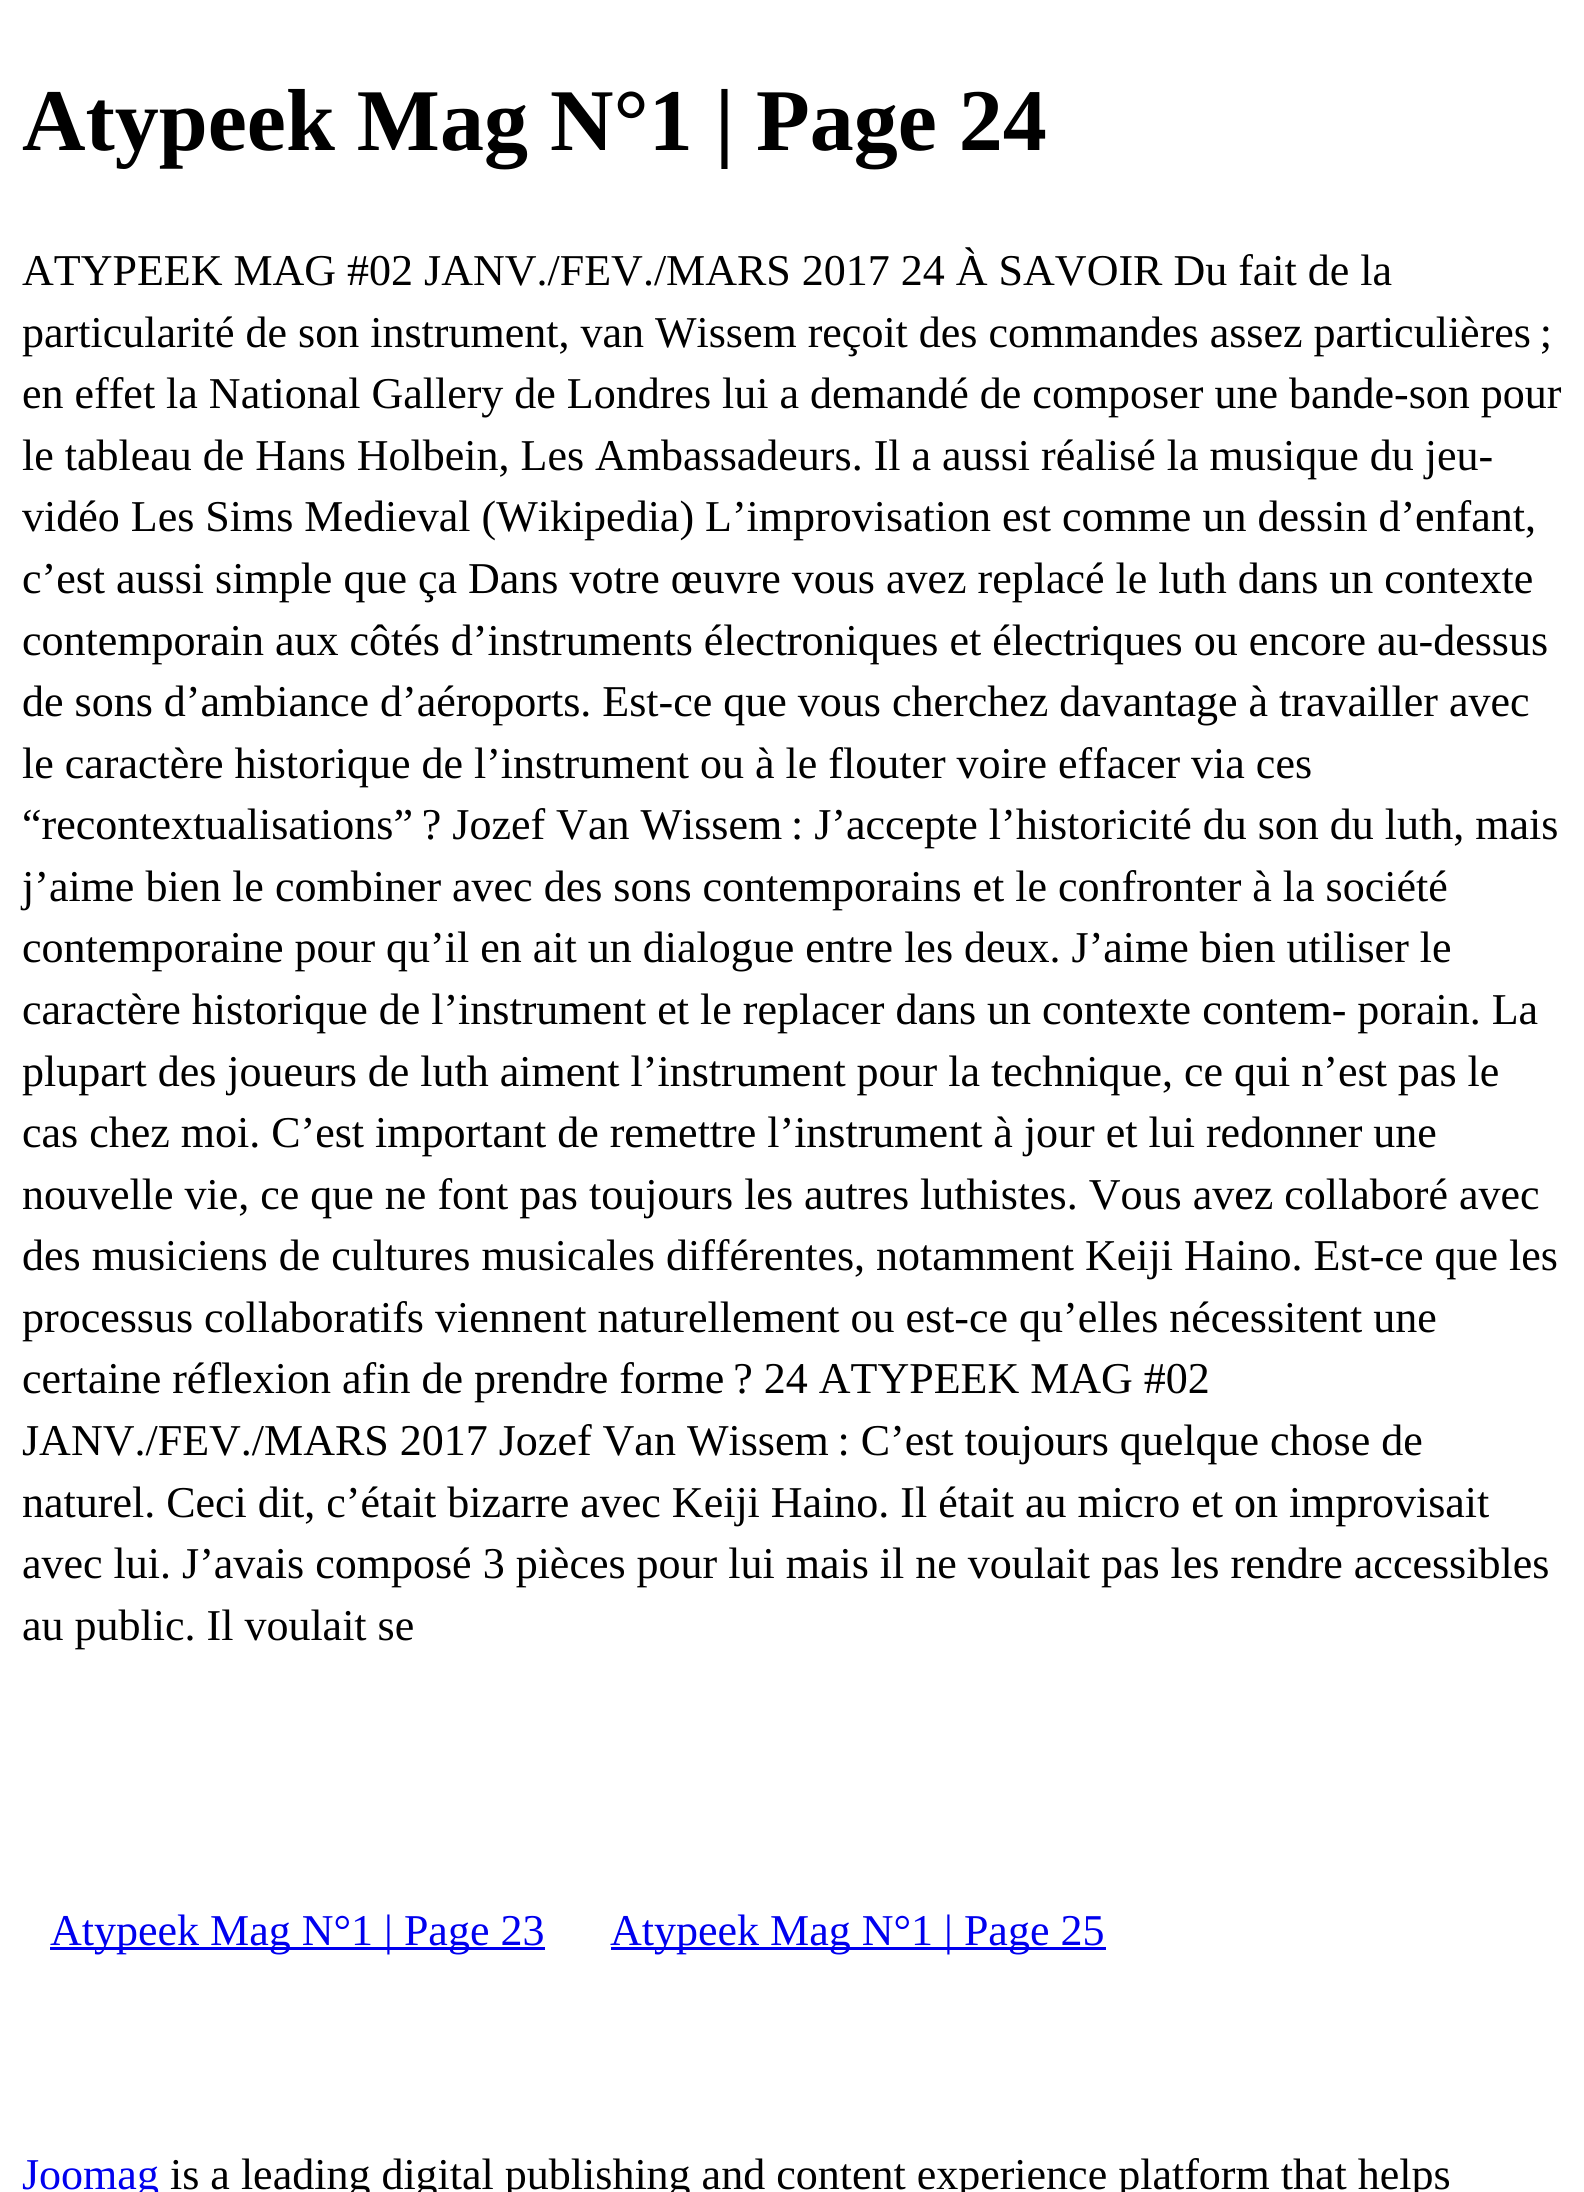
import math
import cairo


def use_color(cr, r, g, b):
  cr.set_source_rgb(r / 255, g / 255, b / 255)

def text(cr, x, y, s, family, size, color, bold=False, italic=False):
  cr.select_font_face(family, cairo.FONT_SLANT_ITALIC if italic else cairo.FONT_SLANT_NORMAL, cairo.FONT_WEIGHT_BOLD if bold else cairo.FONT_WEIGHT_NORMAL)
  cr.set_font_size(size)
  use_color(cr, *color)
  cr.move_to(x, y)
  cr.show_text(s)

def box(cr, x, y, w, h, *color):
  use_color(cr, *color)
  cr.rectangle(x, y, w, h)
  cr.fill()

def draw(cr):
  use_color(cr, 255, 255, 255)
  cr.paint()
  box(cr, 50, 1947, 495, 3, 0, 0, 238)
  box(cr, 611, 1947, 495, 3, 0, 0, 238)
  text(cr, 22, 150, "Atypeek Mag N°1 | Page 24", "Liberation Serif", 88, (0, 0, 0), bold=True)
  text(cr, 22, 285, "ATYPEEK MAG #02 JANV./FEV./MARS 2017 24 À SAVOIR Du fait de la", "Liberation Serif", 44, (0, 0, 0))
  text(cr, 22, 347, "particularité de son instrument, van Wissem reçoit des commandes assez particulières ;", "Liberation Serif", 44, (0, 0, 0))
  text(cr, 22, 408, "en effet la National Gallery de Londres lui a demandé de composer une bande-son pour", "Liberation Serif", 44, (0, 0, 0))
  text(cr, 22, 470, "le tableau de Hans Holbein, Les Ambassadeurs. Il a aussi réalisé la musique du jeu-", "Liberation Serif", 44, (0, 0, 0))
  text(cr, 22, 531, "vidéo Les Sims Medieval (Wikipedia) L’improvisation est comme un dessin d’enfant,", "Liberation Serif", 44, (0, 0, 0))
  text(cr, 22, 593, "c’est aussi simple que ça Dans votre œuvre vous avez replacé le luth dans un contexte", "Liberation Serif", 44, (0, 0, 0))
  text(cr, 22, 655, "contemporain aux côtés d’instruments électroniques et électriques ou encore au-dessus", "Liberation Serif", 44, (0, 0, 0))
  text(cr, 22, 716, "de sons d’ambiance d’aéroports. Est-ce que vous cherchez davantage à travailler avec", "Liberation Serif", 44, (0, 0, 0))
  text(cr, 22, 778, "le caractère historique de l’instrument ou à le flouter voire effacer via ces", "Liberation Serif", 44, (0, 0, 0))
  text(cr, 22, 839, "“recontextualisations” ? Jozef Van Wissem : J’accepte l’historicité du son du luth, mais", "Liberation Serif", 44, (0, 0, 0))
  text(cr, 22, 901, "j’aime bien le combiner avec des sons contemporains et le confronter à la société", "Liberation Serif", 44, (0, 0, 0))
  text(cr, 22, 962, "contemporaine pour qu’il en ait un dialogue entre les deux. J’aime bien utiliser le", "Liberation Serif", 44, (0, 0, 0))
  text(cr, 22, 1024, "caractère historique de l’instrument et le replacer dans un contexte contem- porain. La", "Liberation Serif", 44, (0, 0, 0))
  text(cr, 22, 1086, "plupart des joueurs de luth aiment l’instrument pour la technique, ce qui n’est pas le", "Liberation Serif", 44, (0, 0, 0))
  text(cr, 22, 1147, "cas chez moi. C’est important de remettre l’instrument à jour et lui redonner une", "Liberation Serif", 44, (0, 0, 0))
  text(cr, 22, 1209, "nouvelle vie, ce que ne font pas toujours les autres luthistes. Vous avez collaboré avec", "Liberation Serif", 44, (0, 0, 0))
  text(cr, 22, 1270, "des musiciens de cultures musicales différentes, notamment Keiji Haino. Est-ce que les", "Liberation Serif", 44, (0, 0, 0))
  text(cr, 22, 1332, "processus collaboratifs viennent naturellement ou est-ce qu’elles nécessitent une", "Liberation Serif", 44, (0, 0, 0))
  text(cr, 22, 1393, "certaine réflexion afin de prendre forme ? 24 ATYPEEK MAG #02", "Liberation Serif", 44, (0, 0, 0))
  text(cr, 22, 1455, "JANV./FEV./MARS 2017 Jozef Van Wissem : C’est toujours quelque chose de", "Liberation Serif", 44, (0, 0, 0))
  text(cr, 22, 1517, "naturel. Ceci dit, c’était bizarre avec Keiji Haino. Il était au micro et on improvisait", "Liberation Serif", 44, (0, 0, 0))
  text(cr, 22, 1578, "avec lui. J’avais composé 3 pièces pour lui mais il ne voulait pas les rendre accessibles", "Liberation Serif", 44, (0, 0, 0))
  text(cr, 22, 1640, "au public. Il voulait se", "Liberation Serif", 44, (0, 0, 0))
  text(cr, 50, 1945, "Atypeek Mag N°1 | Page 23", "Liberation Serif", 44, (0, 0, 238))
  text(cr, 610, 1945, "Atypeek Mag N°1 | Page 25", "Liberation Serif", 44, (0, 0, 238))
  text(cr, 22, 2189, "Joomag", "Liberation Serif", 44, (0, 0, 238))
  text(cr, 170, 2189, "is a leading digital publishing and content experience platform that helps", "Liberation Serif", 44, (0, 0, 0))


surface = cairo.ImageSurface(cairo.FORMAT_RGB24, 1584, 2192)
cr = cairo.Context(surface)
options = cairo.FontOptions()
options.set_hint_metrics(cairo.HINT_METRICS_OFF)
options.set_hint_style(cairo.HINT_STYLE_NONE)
cr.set_font_options(options)
cr.set_miter_limit(4)
draw(cr)
surface.write_to_png("out.png")
